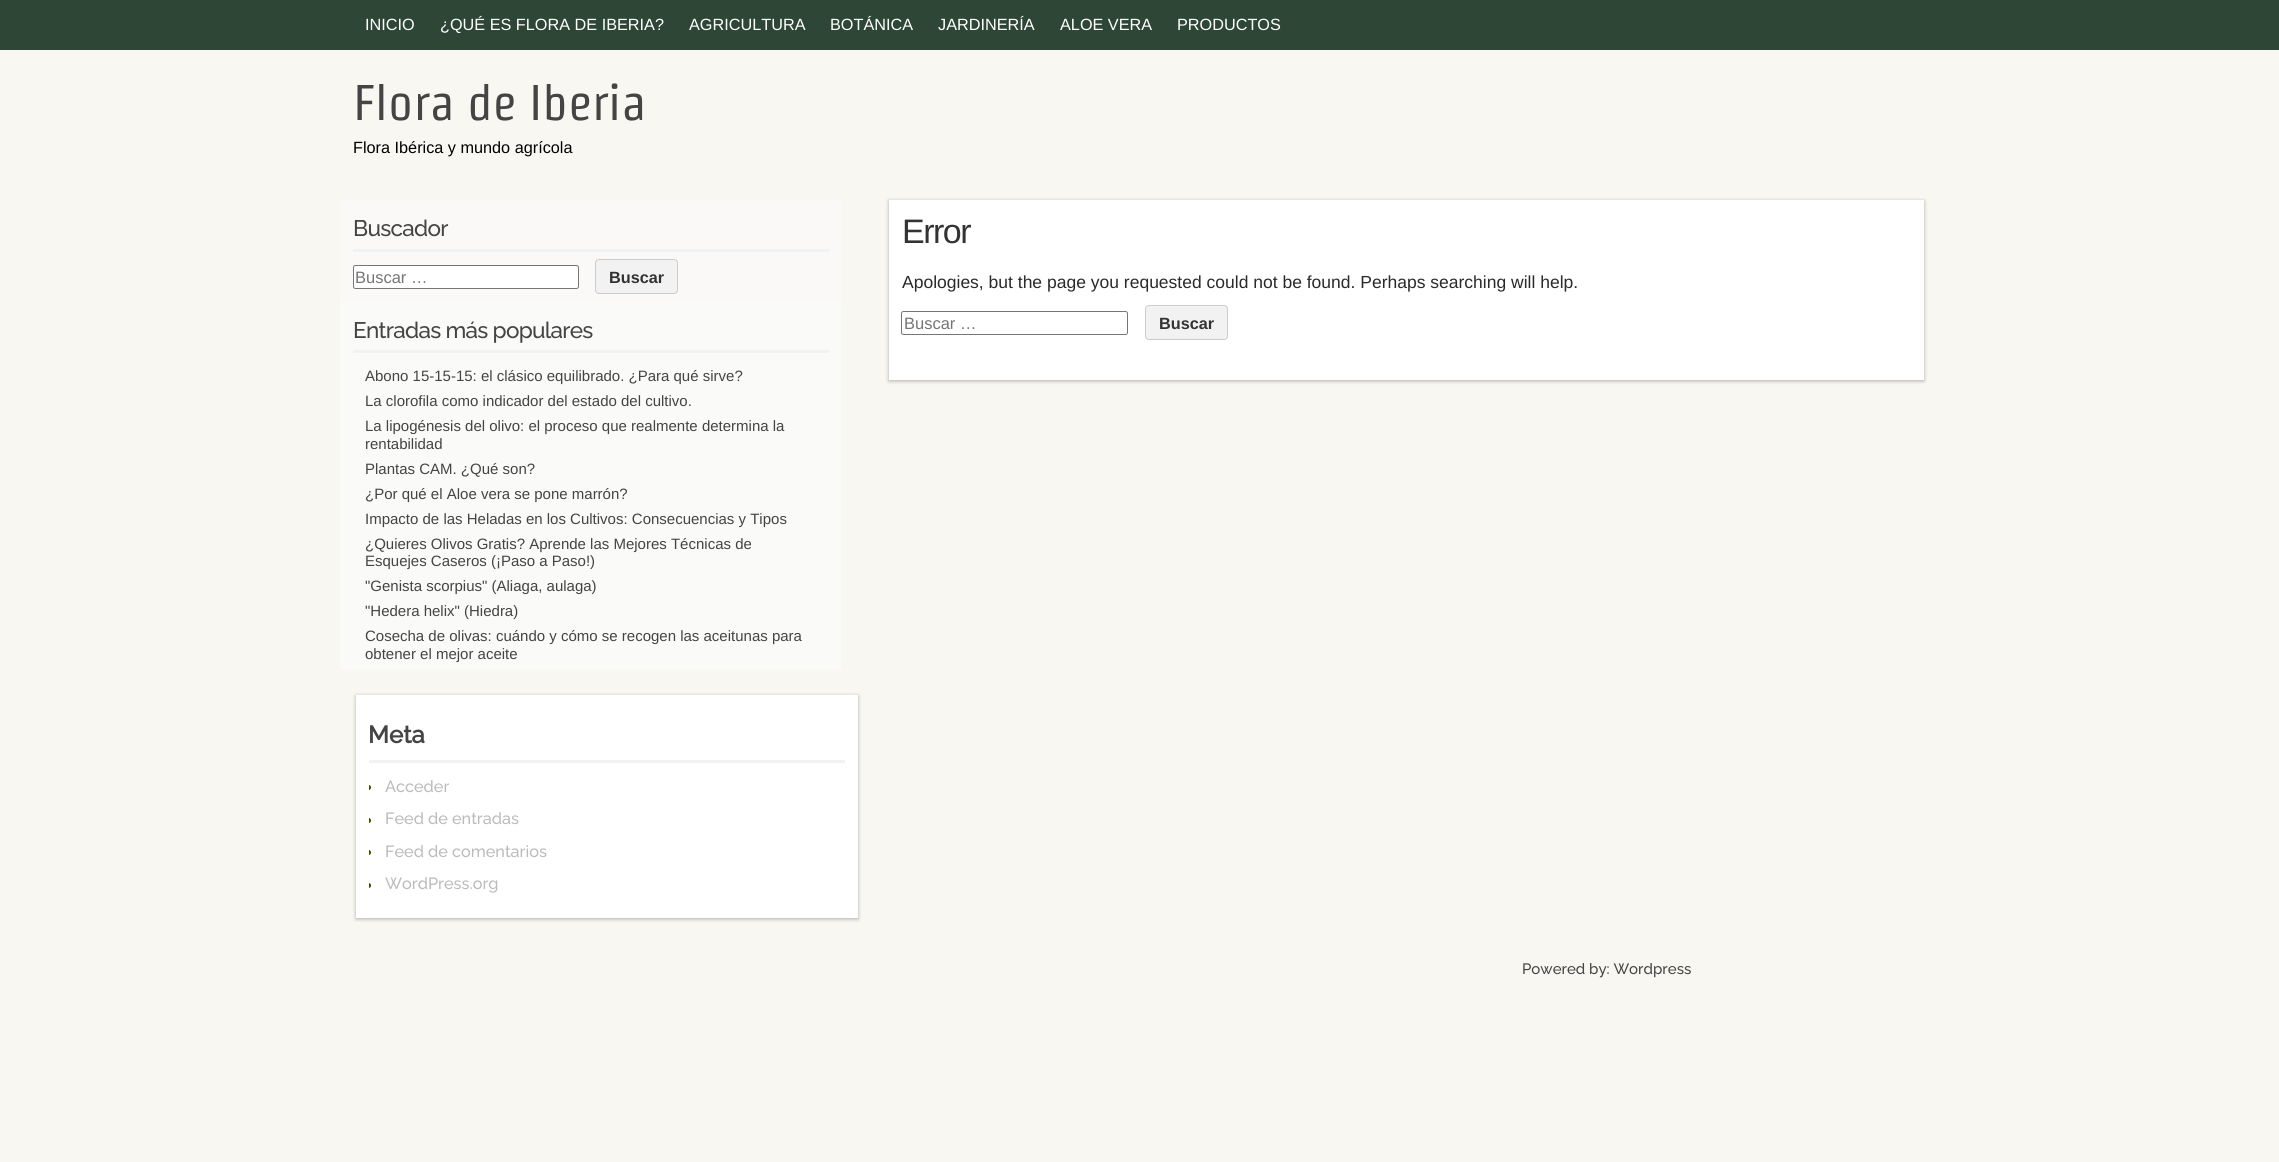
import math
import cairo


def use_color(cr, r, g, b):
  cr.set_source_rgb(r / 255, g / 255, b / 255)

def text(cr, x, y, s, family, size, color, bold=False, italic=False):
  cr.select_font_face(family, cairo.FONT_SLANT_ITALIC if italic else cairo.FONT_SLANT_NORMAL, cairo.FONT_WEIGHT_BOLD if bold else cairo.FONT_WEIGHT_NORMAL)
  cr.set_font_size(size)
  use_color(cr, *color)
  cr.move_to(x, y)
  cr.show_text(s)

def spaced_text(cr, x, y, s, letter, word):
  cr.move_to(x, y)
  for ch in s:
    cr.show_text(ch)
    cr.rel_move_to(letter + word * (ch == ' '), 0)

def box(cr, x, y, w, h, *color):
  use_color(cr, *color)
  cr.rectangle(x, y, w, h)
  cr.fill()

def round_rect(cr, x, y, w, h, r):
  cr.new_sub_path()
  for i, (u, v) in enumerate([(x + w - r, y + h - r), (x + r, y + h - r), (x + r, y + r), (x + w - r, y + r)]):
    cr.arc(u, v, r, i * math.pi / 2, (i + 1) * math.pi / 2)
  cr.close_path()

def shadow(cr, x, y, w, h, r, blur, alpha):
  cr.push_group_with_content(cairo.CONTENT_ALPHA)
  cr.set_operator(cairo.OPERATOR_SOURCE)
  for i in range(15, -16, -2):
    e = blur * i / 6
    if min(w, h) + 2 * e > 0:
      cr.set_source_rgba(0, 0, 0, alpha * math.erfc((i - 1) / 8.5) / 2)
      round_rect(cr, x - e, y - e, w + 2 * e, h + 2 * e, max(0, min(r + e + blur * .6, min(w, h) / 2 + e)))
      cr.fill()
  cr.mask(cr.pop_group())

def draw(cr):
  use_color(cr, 249, 247, 242)
  cr.paint()
  box(cr, 0, 0, 2279, 50, 45, 70, 53)
  box(cr, 340, 200, 501, 101, 250, 249, 248)
  box(cr, 353, 249, 476, 3, 241, 242, 244)
  use_color(cr, 255, 255, 255)
  round_rect(cr, 353.5, 265.5, 225, 23, 2)
  cr.fill_preserve()
  use_color(cr, 118, 118, 118)
  cr.set_line_width(1)
  cr.stroke()
  use_color(cr, 242, 242, 242)
  round_rect(cr, 595.5, 259.5, 82, 34, 3.5)
  cr.fill_preserve()
  use_color(cr, 204, 204, 204)
  cr.stroke()
  use_color(cr, 0, 0, 0)
  shadow(cr, 889, 201, 1035, 180, 0, 2, 0.3)
  box(cr, 889, 200, 1035, 180, 255, 255, 255)
  round_rect(cr, 901.5, 311.5, 226, 23, 2)
  use_color(cr, 118, 118, 118)
  cr.stroke()
  use_color(cr, 242, 242, 242)
  round_rect(cr, 1145.5, 305.5, 82, 34, 3.5)
  cr.fill_preserve()
  use_color(cr, 204, 204, 204)
  cr.stroke()
  box(cr, 340, 301, 501, 369, 250, 250, 248)
  box(cr, 353, 350, 476, 3, 241, 242, 244)
  use_color(cr, 0, 0, 0)
  shadow(cr, 356, 696, 502, 223, 0, 2, 0.3)
  box(cr, 356, 695, 502, 223, 255, 255, 255)
  box(cr, 369, 760, 476, 3, 241, 242, 244)
  use_color(cr, 68, 64, 0)
  cr.new_path()
  cr.move_to(369, 785)
  cr.line_to(368.5, 785)
  cr.curve_to(370, 785, 371, 786, 371, 787.5)
  cr.curve_to(371, 789, 370, 790, 368.5, 790)
  cr.line_to(369, 790)
  cr.close_path()
  cr.fill()
  cr.new_path()
  cr.move_to(369, 818)
  cr.line_to(368.5, 818)
  cr.curve_to(370, 818, 371, 819, 371, 820.5)
  cr.curve_to(371, 822, 370, 823, 368.5, 823)
  cr.line_to(369, 823)
  cr.close_path()
  cr.fill()
  cr.new_path()
  cr.move_to(369, 850)
  cr.line_to(368.5, 850)
  cr.curve_to(370, 850, 371, 851, 371, 852.5)
  cr.curve_to(371, 854, 370, 855, 368.5, 855)
  cr.line_to(369, 855)
  cr.close_path()
  cr.fill()
  cr.new_path()
  cr.move_to(369, 883)
  cr.line_to(368.5, 883)
  cr.curve_to(370, 883, 371, 884, 371, 885.5)
  cr.curve_to(371, 887, 370, 888, 368.5, 888)
  cr.line_to(369, 888)
  cr.close_path()
  cr.fill()
  text(cr, 365, 30, "INICIO", "Liberation Sans", 16.25, (255, 255, 255))
  text(cr, 440, 30, "¿QUÉ ES FLORA DE IBERIA?", "Liberation Sans", 16.25, (255, 255, 255))
  text(cr, 689, 30, "AGRICULTURA", "Liberation Sans", 16.25, (255, 255, 255))
  text(cr, 830, 30, "BOTÁNICA", "Liberation Sans", 16.25, (255, 255, 255))
  text(cr, 938, 30, "JARDINERÍA", "Liberation Sans", 16.25, (255, 255, 255))
  text(cr, 1060, 30, "ALOE VERA", "Liberation Sans", 16.25, (255, 255, 255))
  text(cr, 1177, 30, "PRODUCTOS", "Liberation Sans", 16.25, (255, 255, 255))
  text(cr, 353, 120, "Flora de Iberia", "Strait", 50, (68, 68, 68))
  text(cr, 353, 153, "Flora Ibérica y mundo agrícola", "Liberation Sans", 16.25, (0, 0, 0))
  cr.select_font_face("Raleway Thin")
  cr.set_font_size(22.5)
  use_color(cr, 68, 68, 68)
  spaced_text(cr, 353, 236, "Buscador", -0.7, 0)
  text(cr, 355, 283, "Buscar …", "Liberation Sans", 16.5, (117, 117, 117))
  text(cr, 609, 283, "Buscar", "Liberation Sans", 16.25, (51, 51, 51), bold=True)
  cr.select_font_face("Liberation Sans")
  cr.set_font_size(34)
  spaced_text(cr, 902, 243, "Error", -1.5, 0)
  text(cr, 902, 288, "Apologies, but the page you requested could not be found. Perhaps searching will help.", "Liberation Sans", 17.5, (42, 42, 42))
  text(cr, 904, 329, "Buscar …", "Liberation Sans", 16.5, (117, 117, 117))
  text(cr, 1159, 329, "Buscar", "Liberation Sans", 16.25, (51, 51, 51), bold=True)
  cr.select_font_face("Raleway Thin")
  cr.set_font_size(22.5)
  use_color(cr, 68, 68, 68)
  spaced_text(cr, 353, 338, "Entradas más populares", -0.7, 0)
  text(cr, 365, 381, "Abono 15-15-15: el clásico equilibrado. ¿Para qué sirve?", "Liberation Sans", 15, (68, 68, 68))
  text(cr, 365, 406, "La clorofila como indicador del estado del cultivo.", "Liberation Sans", 15, (68, 68, 68))
  text(cr, 365, 431, "La lipogénesis del olivo: el proceso que realmente determina la", "Liberation Sans", 15, (68, 68, 68))
  text(cr, 365, 449, "rentabilidad", "Liberation Sans", 15, (68, 68, 68))
  text(cr, 365, 474, "Plantas CAM. ¿Qué son?", "Liberation Sans", 15, (68, 68, 68))
  text(cr, 365, 499, "¿Por qué el Aloe vera se pone marrón?", "Liberation Sans", 15, (68, 68, 68))
  text(cr, 365, 524, "Impacto de las Heladas en los Cultivos: Consecuencias y Tipos", "Liberation Sans", 15, (68, 68, 68))
  text(cr, 365, 549, "¿Quieres Olivos Gratis? Aprende las Mejores Técnicas de", "Liberation Sans", 15, (68, 68, 68))
  text(cr, 365, 566, "Esquejes Caseros (¡Paso a Paso!)", "Liberation Sans", 15, (68, 68, 68))
  text(cr, 365, 591, "\"Genista scorpius\" (Aliaga, aulaga)", "Liberation Sans", 15, (68, 68, 68))
  text(cr, 365, 616, "\"Hedera helix\" (Hiedra)", "Liberation Sans", 15, (68, 68, 68))
  text(cr, 365, 641, "Cosecha de olivas: cuándo y cómo se recogen las aceitunas para", "Liberation Sans", 15, (68, 68, 68))
  text(cr, 365, 659, "obtener el mejor aceite", "Liberation Sans", 15, (68, 68, 68))
  text(cr, 368, 743, "Meta", "Raleway", 24, (68, 68, 68), bold=True)
  text(cr, 385, 792, "Acceder", "Raleway Thin", 16.25, (187, 187, 187))
  text(cr, 385, 824, "Feed de entradas", "Raleway Thin", 16.25, (187, 187, 187))
  text(cr, 385, 857, "Feed de comentarios", "Raleway Thin", 16.25, (187, 187, 187))
  text(cr, 385, 889, "WordPress.org", "Raleway Thin", 16.25, (187, 187, 187))
  text(cr, 1522, 974, "Powered by: Wordpress", "Raleway Thin", 15, (68, 68, 68))


surface = cairo.ImageSurface(cairo.FORMAT_RGB24, 2279, 1162)
cr = cairo.Context(surface)
options = cairo.FontOptions()
options.set_hint_metrics(cairo.HINT_METRICS_OFF)
options.set_hint_style(cairo.HINT_STYLE_NONE)
cr.set_font_options(options)
cr.set_miter_limit(4)
draw(cr)
surface.write_to_png("out.png")
